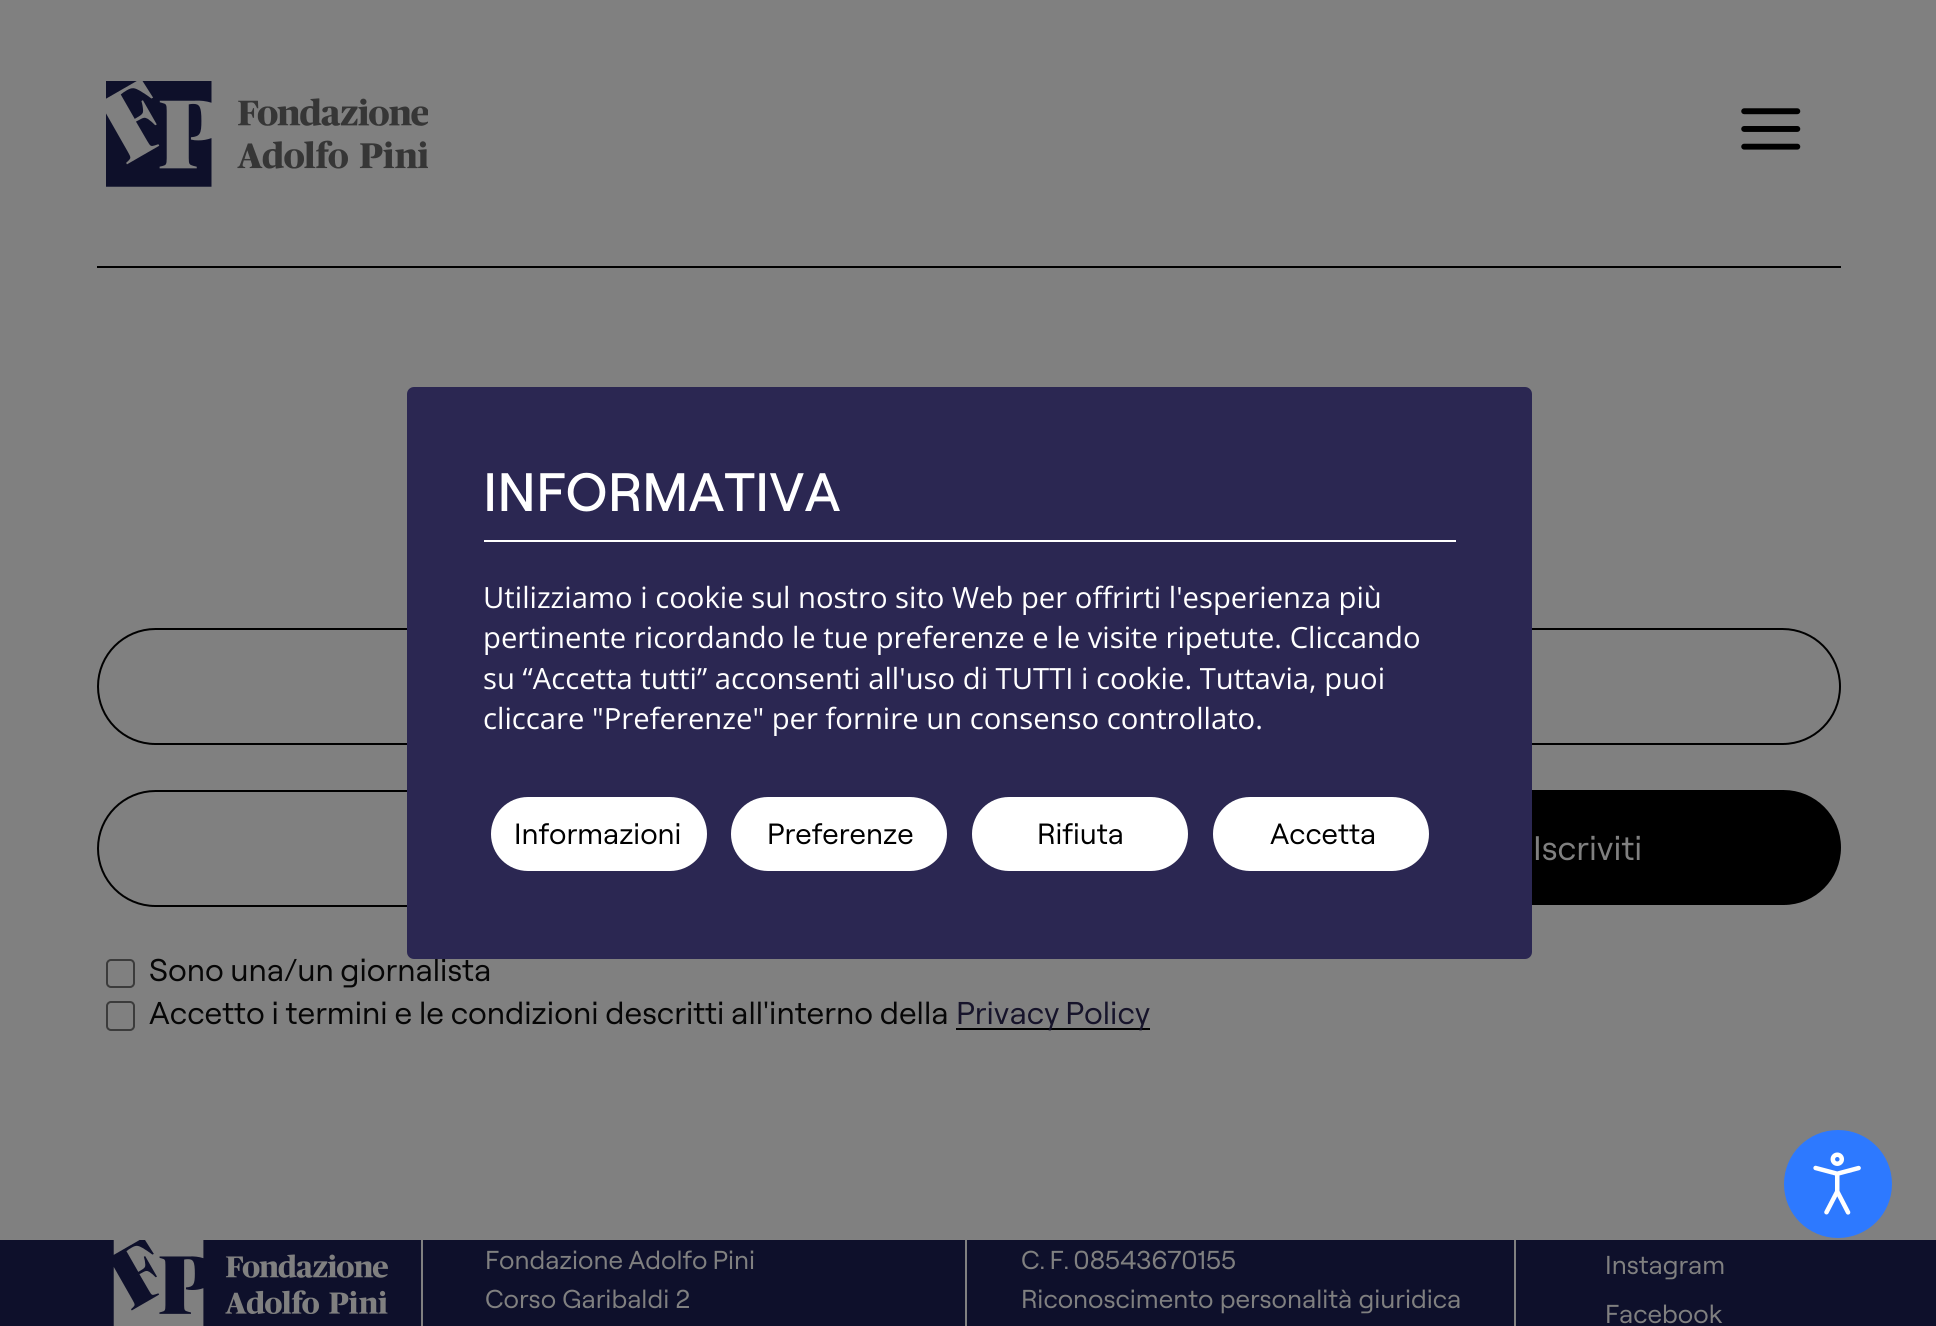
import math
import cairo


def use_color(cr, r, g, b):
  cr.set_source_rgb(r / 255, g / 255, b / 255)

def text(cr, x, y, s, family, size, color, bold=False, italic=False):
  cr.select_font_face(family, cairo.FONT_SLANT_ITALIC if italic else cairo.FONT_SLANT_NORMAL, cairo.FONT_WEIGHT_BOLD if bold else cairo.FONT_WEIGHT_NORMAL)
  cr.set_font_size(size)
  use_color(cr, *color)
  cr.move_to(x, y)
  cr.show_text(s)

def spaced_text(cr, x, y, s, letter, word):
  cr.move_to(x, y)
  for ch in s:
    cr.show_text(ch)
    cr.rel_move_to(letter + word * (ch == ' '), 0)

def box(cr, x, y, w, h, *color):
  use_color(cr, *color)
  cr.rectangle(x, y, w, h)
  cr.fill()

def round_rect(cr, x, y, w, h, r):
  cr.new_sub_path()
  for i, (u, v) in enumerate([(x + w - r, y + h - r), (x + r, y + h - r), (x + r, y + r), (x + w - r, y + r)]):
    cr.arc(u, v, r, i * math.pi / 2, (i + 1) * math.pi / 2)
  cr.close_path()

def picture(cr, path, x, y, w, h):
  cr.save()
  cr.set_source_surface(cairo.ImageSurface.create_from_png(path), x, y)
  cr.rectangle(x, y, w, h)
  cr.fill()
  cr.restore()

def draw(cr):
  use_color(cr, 128, 128, 128)
  cr.paint()
  box(cr, 97, 266, 1744, 2, 0, 0, 0)
  picture(cr, "img_01.png", 106, 81, 322, 106)
  picture(cr, "img_02.png", 1741, 108, 60, 42)
  round_rect(cr, 98, 629, 853, 115, 57.5)
  cr.stroke()
  round_rect(cr, 987, 629, 853, 115, 57.5)
  cr.stroke()
  round_rect(cr, 98, 791, 1199, 115, 57.5)
  cr.stroke()
  round_rect(cr, 1335, 791, 505, 113, 56.5)
  cr.fill_preserve()
  cr.stroke()
  round_rect(cr, 107, 960, 27, 27, 4)
  use_color(cr, 59, 59, 59)
  cr.stroke()
  round_rect(cr, 107, 1002, 27, 28, 4)
  cr.stroke()
  box(cr, 956, 1028, 194, 2, 0, 0, 0)
  box(cr, 0, 1240, 1936, 86, 14, 16, 43)
  picture(cr, "img_03.png", 113, 1240, 275, 86)
  box(cr, 965, 1240, 2, 86, 128, 128, 128)
  box(cr, 421, 1240, 2, 86, 128, 128, 128)
  box(cr, 1514, 1240, 2, 86, 128, 128, 128)
  use_color(cr, 45, 121, 255)
  cr.arc(1838, 1184, 54, 0, 2 * math.pi)
  cr.fill()
  picture(cr, "img_04.png", 1813, 1152, 48, 63)
  text(cr, 1533, 860, "Iscriviti", "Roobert", 34, (128, 128, 128))
  cr.set_font_size(31.5)
  use_color(cr, 6, 6, 6)
  spaced_text(cr, 149, 981, "Sono una/un giornalista", 0, -1)
  use_color(cr, 43, 39, 82)
  round_rect(cr, 407, 387, 1125, 572, 7)
  cr.fill()
  use_color(cr, 255, 255, 255)
  round_rect(cr, 1213, 797, 216, 74, 37)
  cr.fill()
  text(cr, 1270, 844, "Accetta", "Roobert", 29.25, (0, 0, 0))
  use_color(cr, 255, 255, 255)
  round_rect(cr, 972, 797, 216, 74, 37)
  cr.fill()
  text(cr, 1037, 844, "Rifiuta", "Roobert", 29.25, (0, 0, 0))
  use_color(cr, 255, 255, 255)
  round_rect(cr, 731, 797, 216, 74, 37)
  cr.fill()
  text(cr, 767, 844, "Preferenze", "Roobert", 29.25, (0, 0, 0))
  use_color(cr, 255, 255, 255)
  round_rect(cr, 491, 797, 216, 74, 37)
  cr.fill()
  text(cr, 514, 844, "Informazioni", "Roobert", 29.25, (0, 0, 0))
  text(cr, 483, 729, "cliccare \"Preferenze\" per fornire un consenso controllato.", "Open Sans", 29.25, (255, 255, 255))
  text(cr, 483, 689, "su “Accetta tutti” acconsenti all'uso di TUTTI i cookie. Tuttavia, puoi", "Open Sans", 29.25, (255, 255, 255))
  text(cr, 483, 648, "pertinente ricordando le tue preferenze e le visite ripetute. Cliccando", "Open Sans", 29.25, (255, 255, 255))
  text(cr, 483, 608, "Utilizziamo i cookie sul nostro sito Web per offrirti l'esperienza più", "Open Sans", 29.25, (255, 255, 255))
  text(cr, 483, 511, "INFORMATIVA", "Roobert Medium", 54, (255, 255, 255))
  box(cr, 484, 540, 972, 2, 255, 255, 255)
  cr.select_font_face("Roobert")
  cr.set_font_size(31.5)
  use_color(cr, 6, 6, 6)
  spaced_text(cr, 149, 1024, "Accetto i termini e le condizioni descritti all'interno della", 0, -0.75)
  use_color(cr, 22, 19, 42)
  spaced_text(cr, 956, 1024, "Privacy Policy", 0, -2)
  cr.set_font_size(25.9)
  use_color(cr, 128, 128, 128)
  spaced_text(cr, 485, 1269, "Fondazione Adolfo Pini", 0, -1)
  text(cr, 485, 1308, "Corso Garibaldi 2", "Roobert", 25.9, (128, 128, 128))
  spaced_text(cr, 1021, 1269, "C. F. 08543670155", 0, -2)
  text(cr, 1021, 1308, "Riconoscimento personalità giuridica", "Roobert", 25.9, (128, 128, 128))
  text(cr, 1605, 1274, "Instagram", "Roobert", 25.9, (128, 128, 128))
  text(cr, 1605, 1323, "Facebook", "Roobert", 25.9, (128, 128, 128))


surface = cairo.ImageSurface(cairo.FORMAT_RGB24, 1936, 1326)
cr = cairo.Context(surface)
options = cairo.FontOptions()
options.set_hint_metrics(cairo.HINT_METRICS_OFF)
options.set_hint_style(cairo.HINT_STYLE_NONE)
cr.set_font_options(options)
cr.set_miter_limit(4)
draw(cr)
surface.write_to_png("out.png")
